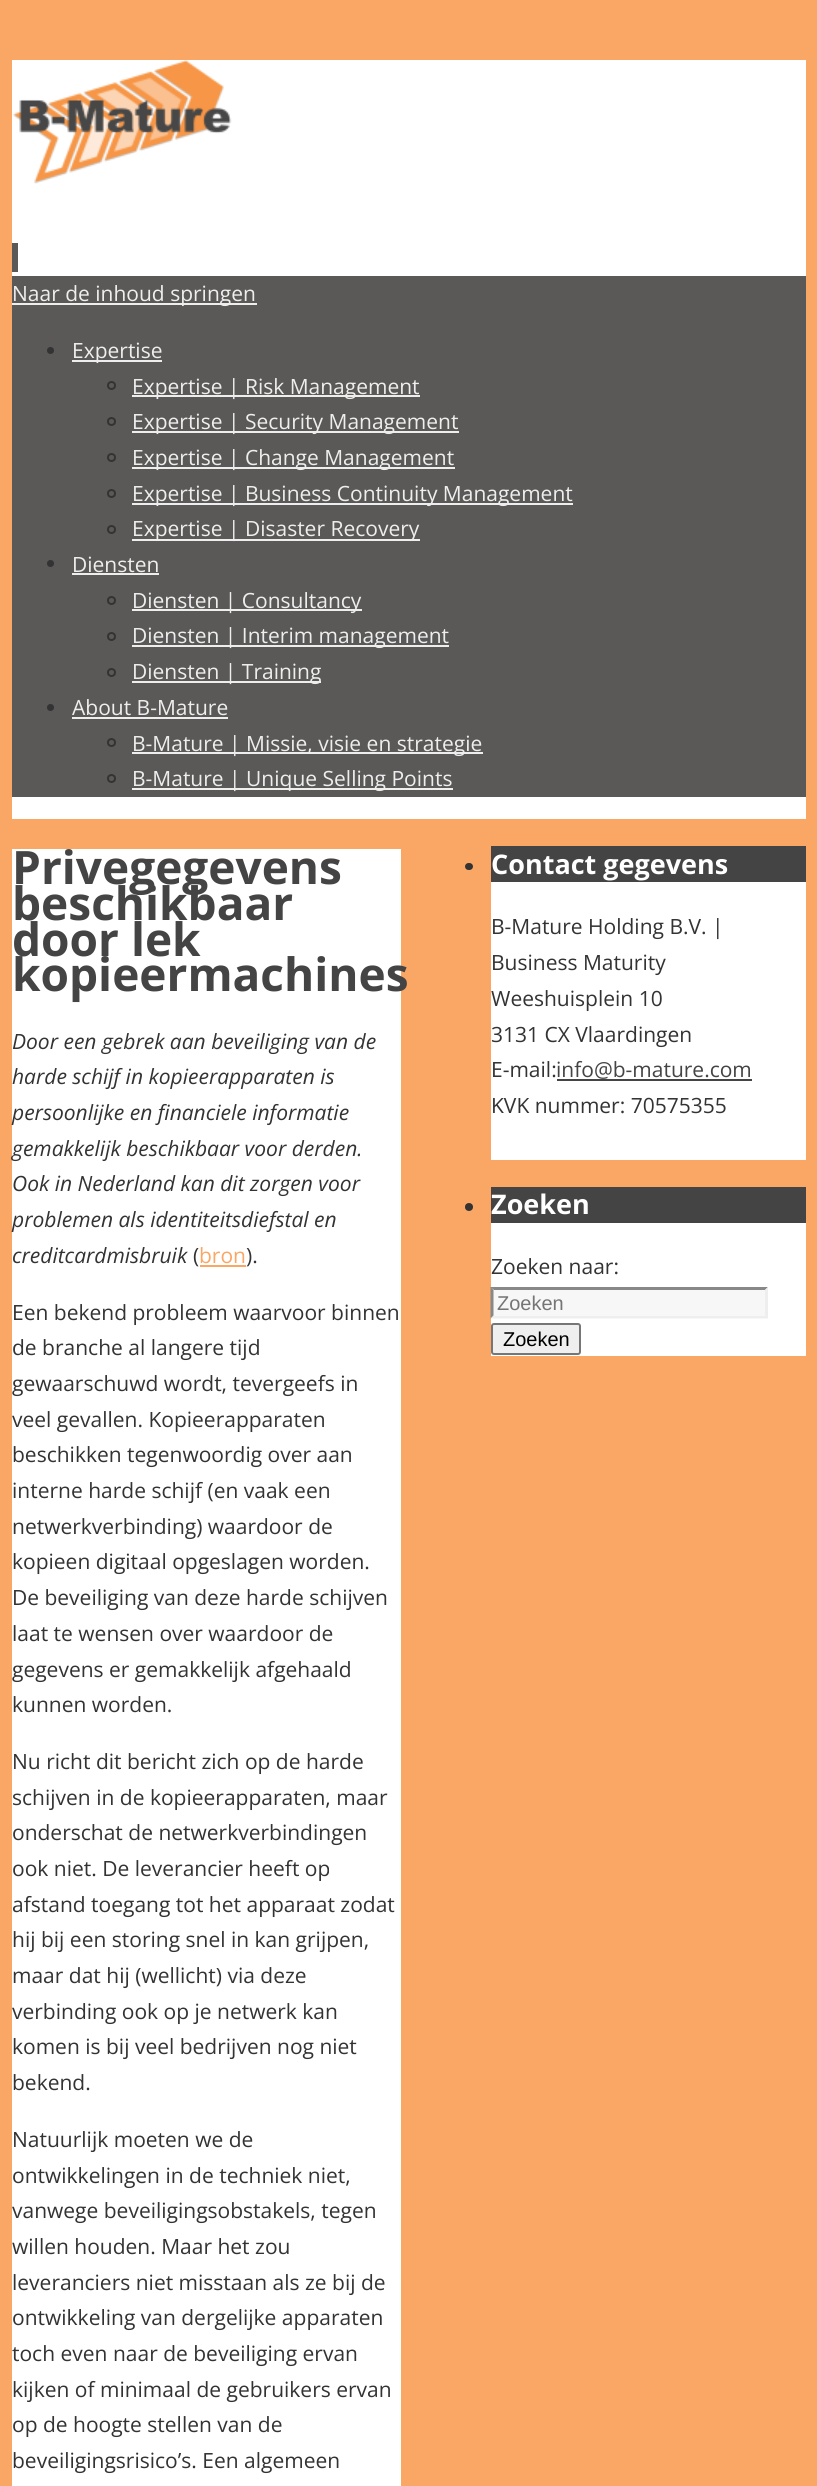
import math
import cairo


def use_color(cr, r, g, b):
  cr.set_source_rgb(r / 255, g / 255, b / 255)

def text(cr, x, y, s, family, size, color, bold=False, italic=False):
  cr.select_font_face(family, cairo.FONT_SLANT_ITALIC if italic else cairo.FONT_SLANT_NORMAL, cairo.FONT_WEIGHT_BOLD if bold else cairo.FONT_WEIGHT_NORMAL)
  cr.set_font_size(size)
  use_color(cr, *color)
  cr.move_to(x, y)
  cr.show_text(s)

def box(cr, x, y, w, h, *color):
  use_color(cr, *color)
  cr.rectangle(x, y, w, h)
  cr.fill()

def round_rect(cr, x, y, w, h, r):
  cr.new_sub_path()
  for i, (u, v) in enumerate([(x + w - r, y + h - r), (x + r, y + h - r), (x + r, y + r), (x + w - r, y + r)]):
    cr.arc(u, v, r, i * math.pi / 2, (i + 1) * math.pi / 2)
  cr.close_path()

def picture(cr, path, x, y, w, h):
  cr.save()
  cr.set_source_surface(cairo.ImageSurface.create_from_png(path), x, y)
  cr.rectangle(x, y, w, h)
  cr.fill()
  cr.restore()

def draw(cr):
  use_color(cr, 250, 166, 101)
  cr.paint()
  box(cr, 12, 60, 794, 759, 255, 255, 255)
  picture(cr, "img_01.png", 13, 60, 219, 124)
  box(cr, 12, 243, 6, 29, 90, 89, 87)
  box(cr, 12, 276, 794, 521, 90, 89, 87)
  box(cr, 12, 303, 245, 2, 238, 238, 238)
  use_color(cr, 51, 51, 51)
  cr.arc(50.5, 350.5, 3.5, 0, 2 * math.pi)
  cr.fill()
  box(cr, 72, 360, 90, 2, 238, 238, 238)
  cr.arc(111.5, 385.5, 3.5, 0, 2 * math.pi)
  use_color(cr, 51, 51, 51)
  cr.stroke()
  box(cr, 132, 395, 288, 2, 238, 238, 238)
  cr.arc(111.5, 421.5, 3.5, 0, 2 * math.pi)
  use_color(cr, 51, 51, 51)
  cr.stroke()
  box(cr, 132, 431, 327, 2, 238, 238, 238)
  cr.arc(111.5, 457.5, 3.5, 0, 2 * math.pi)
  use_color(cr, 51, 51, 51)
  cr.stroke()
  box(cr, 132, 467, 323, 2, 238, 238, 238)
  cr.arc(111.5, 493.5, 3.5, 0, 2 * math.pi)
  use_color(cr, 51, 51, 51)
  cr.stroke()
  box(cr, 132, 503, 441, 2, 238, 238, 238)
  cr.arc(111.5, 529.5, 3.5, 0, 2 * math.pi)
  use_color(cr, 51, 51, 51)
  cr.stroke()
  box(cr, 132, 539, 288, 2, 238, 238, 238)
  use_color(cr, 51, 51, 51)
  cr.arc(50.5, 563.5, 3.5, 0, 2 * math.pi)
  cr.fill()
  box(cr, 72, 573, 87, 2, 238, 238, 238)
  cr.arc(111.5, 600.5, 3.5, 0, 2 * math.pi)
  use_color(cr, 51, 51, 51)
  cr.stroke()
  box(cr, 132, 609, 230, 2, 238, 238, 238)
  cr.arc(111.5, 636.5, 3.5, 0, 2 * math.pi)
  use_color(cr, 51, 51, 51)
  cr.stroke()
  box(cr, 132, 645, 317, 2, 238, 238, 238)
  cr.arc(111.5, 672.5, 3.5, 0, 2 * math.pi)
  use_color(cr, 51, 51, 51)
  cr.stroke()
  box(cr, 132, 681, 189, 2, 238, 238, 238)
  use_color(cr, 51, 51, 51)
  cr.arc(50.5, 707.5, 3.5, 0, 2 * math.pi)
  cr.fill()
  box(cr, 72, 717, 156, 2, 238, 238, 238)
  cr.arc(111.5, 742.5, 3.5, 0, 2 * math.pi)
  use_color(cr, 51, 51, 51)
  cr.stroke()
  box(cr, 132, 752, 351, 2, 238, 238, 238)
  cr.arc(111.5, 778.5, 3.5, 0, 2 * math.pi)
  use_color(cr, 51, 51, 51)
  cr.stroke()
  box(cr, 132, 788, 321, 2, 238, 238, 238)
  box(cr, 12, 849, 389, 1637, 255, 255, 255)
  box(cr, 200, 1265, 46, 2, 250, 166, 101)
  box(cr, 491, 882, 315, 278, 255, 255, 255)
  use_color(cr, 51, 51, 51)
  round_rect(cr, 465, 863, 8, 7, 3.5)
  cr.fill()
  box(cr, 491, 846, 315, 36, 68, 68, 68)
  box(cr, 557, 1079, 195, 2, 68, 68, 68)
  box(cr, 491, 1223, 315, 133, 255, 255, 255)
  use_color(cr, 51, 51, 51)
  cr.arc(469, 1207, 4, 0, 2 * math.pi)
  cr.fill()
  box(cr, 491, 1187, 315, 36, 68, 68, 68)
  box(cr, 491, 1287, 277, 32, 247, 247, 247)
  use_color(cr, 136, 136, 136)
  cr.new_path()
  cr.move_to(490, 1287)
  cr.line_to(768, 1287)
  cr.line_to(765, 1290)
  cr.line_to(494, 1290)
  cr.close_path()
  cr.fill()
  use_color(cr, 238, 238, 238)
  cr.new_path()
  cr.move_to(768, 1287)
  cr.line_to(768, 1318.5)
  cr.line_to(765, 1315.5)
  cr.line_to(765, 1290)
  cr.close_path()
  cr.fill()
  cr.new_path()
  cr.move_to(768, 1318)
  cr.line_to(490, 1318)
  cr.line_to(494, 1316)
  cr.line_to(765, 1316)
  cr.close_path()
  cr.fill()
  use_color(cr, 136, 136, 136)
  cr.new_path()
  cr.move_to(490.5, 1318.5)
  cr.line_to(490.5, 1287)
  cr.line_to(493.5, 1290)
  cr.line_to(493.5, 1315.5)
  cr.close_path()
  cr.fill()
  use_color(cr, 239, 239, 239)
  round_rect(cr, 492, 1324, 88, 30, 2)
  cr.fill_preserve()
  use_color(cr, 118, 118, 118)
  cr.stroke()
  text(cr, 12, 301, "Naar de inhoud springen", "Open Sans", 21, (238, 238, 238))
  text(cr, 72, 358, "Expertise", "Open Sans", 21, (238, 238, 238))
  text(cr, 132, 394, "Expertise | Risk Management", "Open Sans", 21, (238, 238, 238))
  text(cr, 132, 429, "Expertise | Security Management", "Open Sans", 21, (238, 238, 238))
  text(cr, 132, 465, "Expertise | Change Management", "Open Sans", 21, (238, 238, 238))
  text(cr, 132, 501, "Expertise | Business Continuity Management", "Open Sans", 21, (238, 238, 238))
  text(cr, 132, 536, "Expertise | Disaster Recovery", "Open Sans", 21, (238, 238, 238))
  text(cr, 72, 572, "Diensten", "Open Sans", 21, (238, 238, 238))
  text(cr, 132, 608, "Diensten | Consultancy", "Open Sans", 21, (238, 238, 238))
  text(cr, 132, 643, "Diensten | Interim management", "Open Sans", 21, (238, 238, 238))
  text(cr, 132, 679, "Diensten | Training", "Open Sans", 21, (238, 238, 238))
  text(cr, 72, 715, "About B-Mature", "Open Sans", 21, (238, 238, 238))
  text(cr, 132, 751, "B-Mature | Missie, visie en strategie", "Open Sans", 21, (238, 238, 238))
  text(cr, 132, 786, "B-Mature | Unique Selling Points", "Open Sans", 21, (238, 238, 238))
  text(cr, 12, 884, "Privegegevens", "Open Sans", 46, (68, 68, 68), bold=True)
  text(cr, 12, 920, "beschikbaar", "Open Sans", 46, (68, 68, 68), bold=True)
  text(cr, 12, 956, "door lek", "Open Sans", 46, (68, 68, 68), bold=True)
  text(cr, 12, 991, "kopieermachines", "Open Sans", 46, (68, 68, 68), bold=True)
  text(cr, 12, 1049, "Door een gebrek aan beveiliging van de", "Open Sans", 21, (51, 51, 51), italic=True)
  text(cr, 12, 1084, "harde schijf in kopieerapparaten is", "Open Sans", 21, (51, 51, 51), italic=True)
  text(cr, 12, 1120, "persoonlijke en financiele informatie", "Open Sans", 21, (51, 51, 51), italic=True)
  text(cr, 12, 1156, "gemakkelijk beschikbaar voor derden.", "Open Sans", 21, (51, 51, 51), italic=True)
  text(cr, 12, 1191, "Ook in Nederland kan dit zorgen voor", "Open Sans", 21, (51, 51, 51), italic=True)
  text(cr, 12, 1227, "problemen als identiteitsdiefstal en", "Open Sans", 21, (51, 51, 51), italic=True)
  text(cr, 12, 1263, "creditcardmisbruik", "Open Sans", 21, (51, 51, 51), italic=True)
  text(cr, 193, 1263, "(", "Open Sans", 21, (51, 51, 51))
  text(cr, 199, 1263, "bron", "Open Sans", 21, (250, 166, 101))
  text(cr, 246, 1263, ").", "Open Sans", 21, (51, 51, 51))
  text(cr, 12, 1320, "Een bekend probleem waarvoor binnen", "Open Sans", 21, (51, 51, 51))
  text(cr, 12, 1355, "de branche al langere tijd", "Open Sans", 21, (51, 51, 51))
  text(cr, 12, 1391, "gewaarschuwd wordt, tevergeefs in", "Open Sans", 21, (51, 51, 51))
  text(cr, 12, 1427, "veel gevallen. Kopieerapparaten", "Open Sans", 21, (51, 51, 51))
  text(cr, 12, 1462, "beschikken tegenwoordig over aan", "Open Sans", 21, (51, 51, 51))
  text(cr, 12, 1498, "interne harde schijf (en vaak een", "Open Sans", 21, (51, 51, 51))
  text(cr, 12, 1534, "netwerkverbinding) waardoor de", "Open Sans", 21, (51, 51, 51))
  text(cr, 12, 1569, "kopieen digitaal opgeslagen worden.", "Open Sans", 21, (51, 51, 51))
  text(cr, 12, 1605, "De beveiliging van deze harde schijven", "Open Sans", 21, (51, 51, 51))
  text(cr, 12, 1641, "laat te wensen over waardoor de", "Open Sans", 21, (51, 51, 51))
  text(cr, 12, 1677, "gegevens er gemakkelijk afgehaald", "Open Sans", 21, (51, 51, 51))
  text(cr, 12, 1712, "kunnen worden.", "Open Sans", 21, (51, 51, 51))
  text(cr, 12, 1769, "Nu richt dit bericht zich op de harde", "Open Sans", 21, (51, 51, 51))
  text(cr, 12, 1805, "schijven in de kopieerapparaten, maar", "Open Sans", 21, (51, 51, 51))
  text(cr, 12, 1840, "onderschat de netwerkverbindingen", "Open Sans", 21, (51, 51, 51))
  text(cr, 12, 1876, "ook niet. De leverancier heeft op", "Open Sans", 21, (51, 51, 51))
  text(cr, 12, 1912, "afstand toegang tot het apparaat zodat", "Open Sans", 21, (51, 51, 51))
  text(cr, 12, 1947, "hij bij een storing snel in kan grijpen,", "Open Sans", 21, (51, 51, 51))
  text(cr, 12, 1983, "maar dat hij (wellicht) via deze", "Open Sans", 21, (51, 51, 51))
  text(cr, 12, 2019, "verbinding ook op je netwerk kan", "Open Sans", 21, (51, 51, 51))
  text(cr, 12, 2054, "komen is bij veel bedrijven nog niet", "Open Sans", 21, (51, 51, 51))
  text(cr, 12, 2090, "bekend.", "Open Sans", 21, (51, 51, 51))
  text(cr, 12, 2147, "Natuurlijk moeten we de", "Open Sans", 21, (51, 51, 51))
  text(cr, 12, 2183, "ontwikkelingen in de techniek niet,", "Open Sans", 21, (51, 51, 51))
  text(cr, 12, 2218, "vanwege beveiligingsobstakels, tegen", "Open Sans", 21, (51, 51, 51))
  text(cr, 12, 2254, "willen houden. Maar het zou", "Open Sans", 21, (51, 51, 51))
  text(cr, 12, 2290, "leveranciers niet misstaan als ze bij de", "Open Sans", 21, (51, 51, 51))
  text(cr, 12, 2325, "ontwikkeling van dergelijke apparaten", "Open Sans", 21, (51, 51, 51))
  text(cr, 12, 2361, "toch even naar de beveiliging ervan", "Open Sans", 21, (51, 51, 51))
  text(cr, 12, 2397, "kijken of minimaal de gebruikers ervan", "Open Sans", 21, (51, 51, 51))
  text(cr, 12, 2432, "op de hoogte stellen van de", "Open Sans", 21, (51, 51, 51))
  text(cr, 12, 2468, "beveiligingsrisico’s. Een algemeen", "Open Sans", 21, (51, 51, 51))
  text(cr, 491, 874, "Contact gegevens", "Open Sans", 27, (255, 255, 255), bold=True)
  text(cr, 491, 934, "B-Mature Holding B.V. |", "Open Sans", 21, (51, 51, 51))
  text(cr, 491, 970, "Business Maturity", "Open Sans", 21, (51, 51, 51))
  text(cr, 491, 1006, "Weeshuisplein 10", "Open Sans", 21, (51, 51, 51))
  text(cr, 491, 1042, "3131 CX Vlaardingen", "Open Sans", 21, (51, 51, 51))
  text(cr, 491, 1077, "E-mail:", "Open Sans", 21, (51, 51, 51))
  text(cr, 556, 1077, "info@b-mature.com", "Open Sans", 21, (68, 68, 68))
  text(cr, 491, 1113, "KVK nummer: 70575355", "Open Sans", 21, (51, 51, 51))
  text(cr, 491, 1214, "Zoeken", "Open Sans", 27, (255, 255, 255), bold=True)
  text(cr, 491, 1274, "Zoeken naar:", "Open Sans", 21, (51, 51, 51))
  text(cr, 497, 1310, "Zoeken", "Liberation Sans", 20, (117, 117, 117))
  text(cr, 503, 1346, "Zoeken", "Liberation Sans", 20, (0, 0, 0))


surface = cairo.ImageSurface(cairo.FORMAT_RGB24, 817, 2486)
cr = cairo.Context(surface)
options = cairo.FontOptions()
options.set_hint_metrics(cairo.HINT_METRICS_OFF)
options.set_hint_style(cairo.HINT_STYLE_NONE)
cr.set_font_options(options)
cr.set_miter_limit(4)
draw(cr)
surface.write_to_png("out.png")
